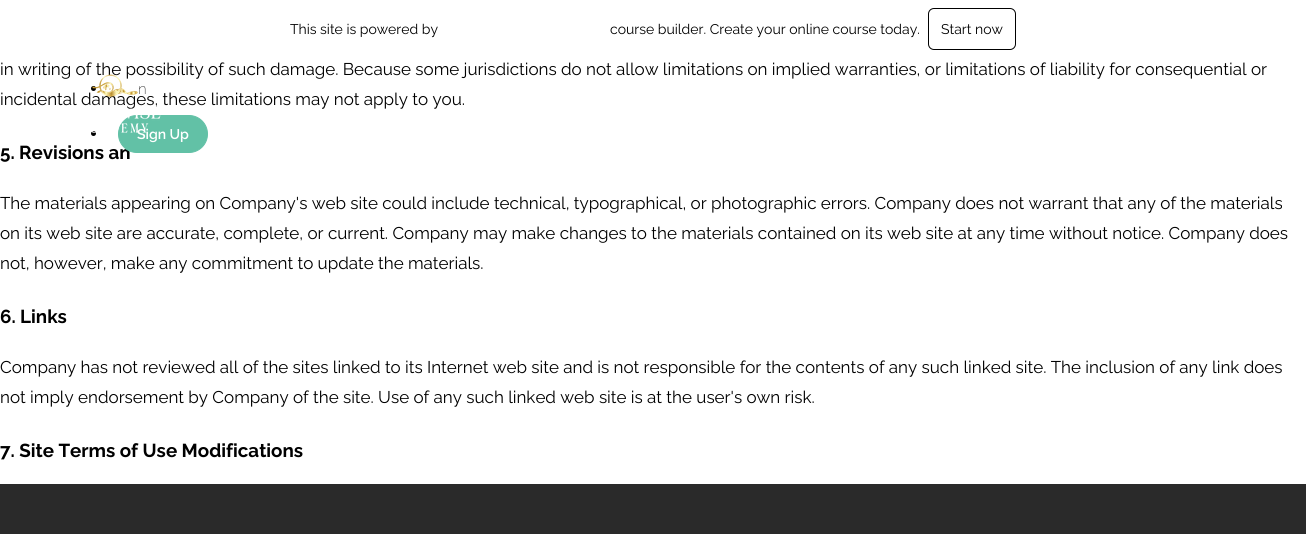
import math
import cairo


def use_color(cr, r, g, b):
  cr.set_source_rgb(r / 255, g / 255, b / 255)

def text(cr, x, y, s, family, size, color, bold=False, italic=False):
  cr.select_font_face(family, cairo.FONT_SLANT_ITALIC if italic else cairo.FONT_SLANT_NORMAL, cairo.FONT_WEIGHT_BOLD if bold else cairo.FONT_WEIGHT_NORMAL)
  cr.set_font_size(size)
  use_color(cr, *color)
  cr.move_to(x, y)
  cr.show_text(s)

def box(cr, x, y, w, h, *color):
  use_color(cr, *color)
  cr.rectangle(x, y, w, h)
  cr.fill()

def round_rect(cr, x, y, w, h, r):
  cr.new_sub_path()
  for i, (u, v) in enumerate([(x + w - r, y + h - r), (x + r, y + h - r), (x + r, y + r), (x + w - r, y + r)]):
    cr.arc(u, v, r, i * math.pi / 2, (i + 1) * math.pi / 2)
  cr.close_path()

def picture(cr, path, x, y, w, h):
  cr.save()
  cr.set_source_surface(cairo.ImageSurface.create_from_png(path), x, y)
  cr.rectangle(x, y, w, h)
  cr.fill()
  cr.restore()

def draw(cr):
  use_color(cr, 255, 255, 255)
  cr.paint()
  round_rect(cr, 928.5, 8.5, 87, 41, 5.5)
  use_color(cr, 0, 0, 0)
  cr.set_line_width(1)
  cr.stroke()
  cr.arc(93.5, 88.5, 2.5, 0, 2 * math.pi)
  cr.fill()
  cr.arc(93.5, 133.5, 2.5, 0, 2 * math.pi)
  cr.fill()
  box(cr, 0, 484, 1306, 50, 42, 42, 42)
  text(cr, 290, 34, "This site is powered by", "Raleway", 14, (0, 0, 0))
  text(cr, 610, 34, "course builder. Create your online course today.", "Raleway", 14, (0, 0, 0))
  text(cr, 941, 34, "Start now", "Raleway", 14, (0, 0, 0))
  text(cr, 138, 94, "n", "Raleway ExtraLight", 15, (42, 42, 42))
  text(cr, 0, 75, "in writing of the possibility of such damage. Because some jurisdictions do not allow limitations on implied warranties, or limitations of liability for consequential or", "Raleway", 17, (0, 0, 0))
  text(cr, 0, 105, "incidental damages, these limitations may not apply to you.", "Raleway", 17, (0, 0, 0))
  text(cr, 0, 159, "5. Revisions an", "Raleway", 18.75, (0, 0, 0), bold=True)
  use_color(cr, 98, 193, 166)
  round_rect(cr, 118.5, 115.5, 89, 37, 18.5)
  cr.fill_preserve()
  cr.stroke()
  text(cr, 137, 139, "Sign Up", "Raleway SemiBold", 14, (255, 255, 255))
  picture(cr, "img_01.png", 70, 74, 91, 59)
  text(cr, 0, 209, "The materials appearing on Company's web site could include technical, typographical, or photographic errors. Company does not warrant that any of the materials", "Raleway", 17, (0, 0, 0))
  text(cr, 0, 239, "on its web site are accurate, complete, or current. Company may make changes to the materials contained on its web site at any time without notice. Company does", "Raleway", 17, (0, 0, 0))
  text(cr, 0, 269, "not, however, make any commitment to update the materials.", "Raleway", 17, (0, 0, 0))
  text(cr, 0, 323, "6. Links", "Raleway", 18.75, (0, 0, 0), bold=True)
  text(cr, 0, 373, "Company has not reviewed all of the sites linked to its Internet web site and is not responsible for the contents of any such linked site. The inclusion of any link does", "Raleway", 17, (0, 0, 0))
  text(cr, 0, 403, "not imply endorsement by Company of the site. Use of any such linked web site is at the user's own risk.", "Raleway", 17, (0, 0, 0))
  text(cr, 0, 457, "7. Site Terms of Use Modifications", "Raleway", 18.75, (0, 0, 0), bold=True)


surface = cairo.ImageSurface(cairo.FORMAT_RGB24, 1306, 534)
cr = cairo.Context(surface)
options = cairo.FontOptions()
options.set_hint_metrics(cairo.HINT_METRICS_OFF)
options.set_hint_style(cairo.HINT_STYLE_NONE)
cr.set_font_options(options)
cr.set_miter_limit(4)
draw(cr)
surface.write_to_png("out.png")
